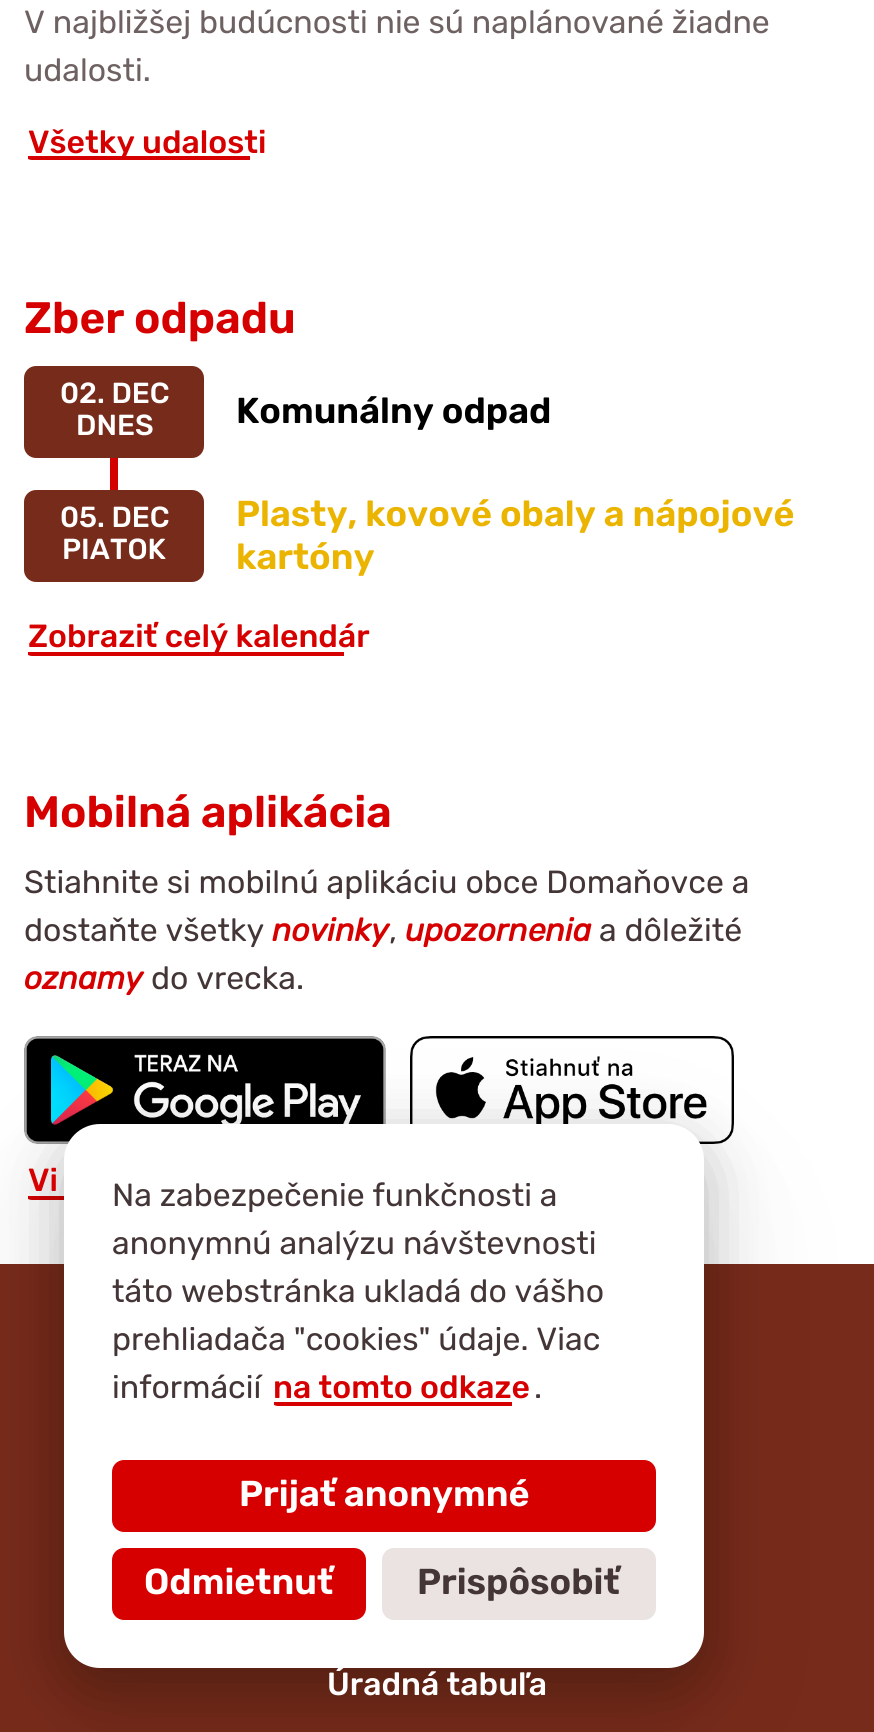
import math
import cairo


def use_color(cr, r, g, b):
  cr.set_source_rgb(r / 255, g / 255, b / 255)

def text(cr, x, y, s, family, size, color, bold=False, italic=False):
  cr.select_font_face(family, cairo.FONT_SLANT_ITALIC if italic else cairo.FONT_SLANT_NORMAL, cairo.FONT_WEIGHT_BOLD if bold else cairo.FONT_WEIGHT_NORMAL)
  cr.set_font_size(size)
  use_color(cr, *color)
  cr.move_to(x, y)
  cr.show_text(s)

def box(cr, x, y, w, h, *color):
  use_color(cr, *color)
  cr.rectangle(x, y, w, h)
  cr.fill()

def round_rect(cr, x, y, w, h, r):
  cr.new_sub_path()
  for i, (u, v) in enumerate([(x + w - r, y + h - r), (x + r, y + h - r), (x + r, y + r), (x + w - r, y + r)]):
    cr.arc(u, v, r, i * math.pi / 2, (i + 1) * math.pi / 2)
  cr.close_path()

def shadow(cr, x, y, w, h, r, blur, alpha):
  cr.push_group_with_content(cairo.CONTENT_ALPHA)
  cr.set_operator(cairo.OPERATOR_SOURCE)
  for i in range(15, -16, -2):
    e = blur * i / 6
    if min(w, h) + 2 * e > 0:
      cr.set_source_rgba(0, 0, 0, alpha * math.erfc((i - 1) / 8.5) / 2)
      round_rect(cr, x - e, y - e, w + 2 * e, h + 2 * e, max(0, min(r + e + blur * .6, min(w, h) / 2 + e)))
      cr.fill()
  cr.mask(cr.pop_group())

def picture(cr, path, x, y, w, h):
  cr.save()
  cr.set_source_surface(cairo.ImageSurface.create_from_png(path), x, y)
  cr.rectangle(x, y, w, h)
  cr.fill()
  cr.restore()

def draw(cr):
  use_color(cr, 255, 255, 255)
  cr.paint()
  cr.save()
  round_rect(cr, 24, 122, 246, 38, 8)
  cr.clip()
  box(cr, 28, 156, 222, 4, 214, 0, 0)
  cr.restore()
  use_color(cr, 119, 43, 26)
  round_rect(cr, 24, 366, 180, 92, 12)
  cr.fill()
  box(cr, 110, 458, 8, 32, 212, 0, 0)
  use_color(cr, 119, 43, 26)
  round_rect(cr, 24, 490, 180, 92, 12)
  cr.fill()
  cr.save()
  round_rect(cr, 24, 618, 350, 38, 8)
  cr.clip()
  box(cr, 28, 652, 316, 4, 214, 0, 0)
  cr.restore()
  picture(cr, "img_01.png", 24, 1036, 362, 108)
  picture(cr, "img_02.png", 410, 1036, 324, 108)
  cr.save()
  round_rect(cr, 24, 1162, 234, 38, 8)
  cr.clip()
  box(cr, 28, 1196, 36, 4, 214, 0, 0)
  cr.restore()
  box(cr, 0, 1264, 874, 468, 119, 43, 26)
  use_color(cr, 0, 0, 0)
  shadow(cr, 64, 1184, 640, 544, 36, 90, 0.05)
  shadow(cr, 64, 1164, 640, 544, 36, 60, 0.05)
  shadow(cr, 64, 1144, 640, 544, 36, 30, 0.25)
  use_color(cr, 255, 255, 255)
  round_rect(cr, 64, 1124, 640, 544, 36)
  cr.fill()
  cr.save()
  round_rect(cr, 270, 1368, 264, 38, 8)
  cr.clip()
  box(cr, 274, 1402, 238, 4, 214, 0, 0)
  cr.restore()
  use_color(cr, 214, 0, 0)
  round_rect(cr, 112, 1460, 544, 72, 12)
  cr.fill()
  round_rect(cr, 112, 1548, 254, 72, 12)
  cr.fill()
  use_color(cr, 234, 227, 225)
  round_rect(cr, 382, 1548, 274, 72, 12)
  cr.fill()
  text(cr, 24, 33, "V najbližšej budúcnosti nie sú naplánované žiadne", "Rubik", 32, (110, 97, 97))
  text(cr, 24, 81, "udalosti.", "Rubik", 32, (110, 97, 97))
  text(cr, 28, 153, "Všetky udalosti", "Rubik Medium", 32, (214, 0, 0))
  text(cr, 24, 333, "Zber odpadu", "Rubik SemiBold", 44, (214, 0, 0))
  text(cr, 60, 403, "02. DEC", "Rubik Medium", 29, (255, 255, 255))
  text(cr, 76, 435, "DNES", "Rubik Medium", 29, (255, 255, 255))
  text(cr, 236, 423, "Komunálny odpad", "Rubik SemiBold", 36, (0, 0, 0))
  text(cr, 60, 527, "05. DEC", "Rubik Medium", 29, (255, 255, 255))
  text(cr, 62, 559, "PIATOK", "Rubik Medium", 29, (255, 255, 255))
  text(cr, 236, 526, "Plasty, kovové obaly a nápojové", "Rubik SemiBold", 36, (235, 180, 0))
  text(cr, 236, 569, "kartóny", "Rubik SemiBold", 36, (235, 180, 0))
  text(cr, 28, 647, "Zobraziť celý kalendár", "Rubik Medium", 32, (214, 0, 0))
  text(cr, 24, 827, "Mobilná aplikácia", "Rubik SemiBold", 44, (214, 0, 0))
  text(cr, 24, 893, "Stiahnite si mobilnú aplikáciu obce Domaňovce a", "Rubik", 32, (68, 54, 54))
  text(cr, 24, 941, "dostaňte všetky", "Rubik", 32, (68, 54, 54))
  text(cr, 272, 941, "novinky", "Rubik", 32, (214, 0, 0), bold=True, italic=True)
  text(cr, 389, 941, ",", "Rubik", 32, (68, 54, 54))
  text(cr, 405, 941, "upozornenia", "Rubik", 32, (214, 0, 0), bold=True, italic=True)
  text(cr, 599, 941, "a dôležité", "Rubik", 32, (68, 54, 54))
  text(cr, 24, 989, "oznamy", "Rubik", 32, (214, 0, 0), bold=True, italic=True)
  text(cr, 151, 989, "do vrecka.", "Rubik", 32, (68, 54, 54))
  text(cr, 28, 1191, "Vi", "Rubik Medium", 32, (214, 0, 0))
  text(cr, 327, 1695, "Úradná tabuľa", "Rubik Medium", 32, (255, 255, 255))
  text(cr, 112, 1206, "Na zabezpečenie funkčnosti a", "Rubik", 32, (68, 54, 54))
  text(cr, 112, 1254, "anonymnú analýzu návštevnosti", "Rubik", 32, (68, 54, 54))
  text(cr, 112, 1302, "táto webstránka ukladá do vášho", "Rubik", 32, (68, 54, 54))
  text(cr, 112, 1350, "prehliadača \"cookies\" údaje. Viac", "Rubik", 32, (68, 54, 54))
  text(cr, 112, 1398, "informácií", "Rubik", 32, (68, 54, 54))
  text(cr, 273, 1398, "na tomto odkaze", "Rubik Medium", 32, (214, 0, 0))
  text(cr, 534, 1398, ".", "Rubik", 32, (68, 54, 54))
  text(cr, 239, 1506, "Prijať anonymné", "Rubik SemiBold", 36, (255, 255, 255))
  text(cr, 144, 1594, "Odmietnuť", "Rubik SemiBold", 36, (255, 255, 255))
  text(cr, 417, 1594, "Prispôsobiť", "Rubik SemiBold", 36, (68, 54, 54))


surface = cairo.ImageSurface(cairo.FORMAT_RGB24, 874, 1732)
cr = cairo.Context(surface)
options = cairo.FontOptions()
options.set_hint_metrics(cairo.HINT_METRICS_OFF)
options.set_hint_style(cairo.HINT_STYLE_NONE)
cr.set_font_options(options)
cr.set_miter_limit(4)
draw(cr)
surface.write_to_png("out.png")
